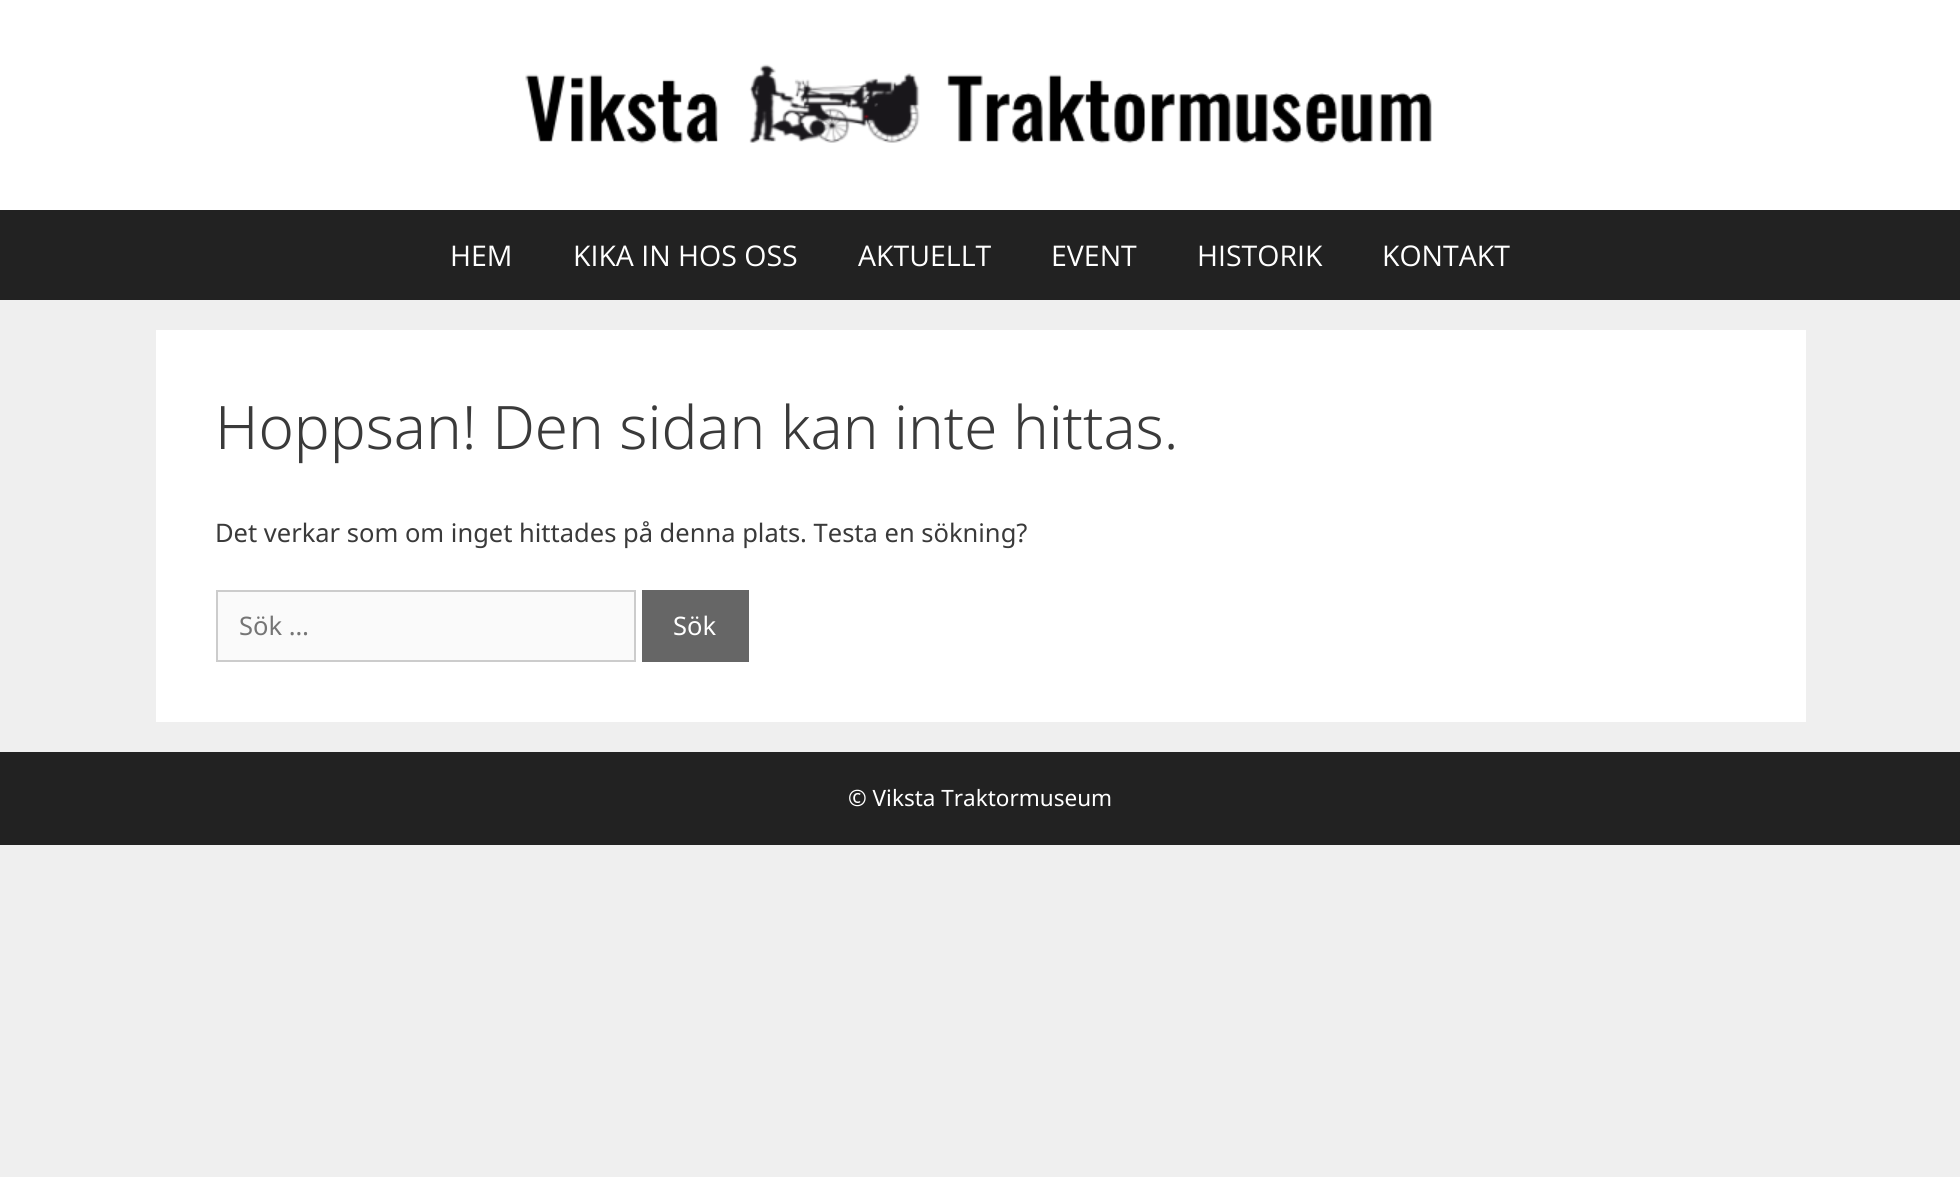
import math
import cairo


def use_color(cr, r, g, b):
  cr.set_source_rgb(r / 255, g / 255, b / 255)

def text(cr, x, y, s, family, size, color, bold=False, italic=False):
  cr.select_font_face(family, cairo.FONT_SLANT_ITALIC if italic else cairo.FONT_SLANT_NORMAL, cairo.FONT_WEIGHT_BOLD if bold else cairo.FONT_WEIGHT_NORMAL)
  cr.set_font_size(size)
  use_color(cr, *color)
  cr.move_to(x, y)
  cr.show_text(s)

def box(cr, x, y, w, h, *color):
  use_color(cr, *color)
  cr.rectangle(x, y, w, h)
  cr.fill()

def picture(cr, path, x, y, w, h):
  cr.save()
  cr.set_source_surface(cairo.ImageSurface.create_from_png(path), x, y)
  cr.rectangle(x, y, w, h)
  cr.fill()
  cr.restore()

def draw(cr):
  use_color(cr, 239, 239, 239)
  cr.paint()
  box(cr, 0, 0, 1960, 210, 255, 255, 255)
  picture(cr, "img_01.png", 525, 64, 907, 80)
  box(cr, 0, 210, 1960, 90, 34, 34, 34)
  box(cr, 156, 330, 1650, 392, 255, 255, 255)
  use_color(cr, 250, 250, 250)
  cr.rectangle(217, 591, 418, 70)
  cr.fill_preserve()
  use_color(cr, 204, 204, 204)
  cr.stroke()
  box(cr, 642, 590, 107, 72, 102, 102, 102)
  box(cr, 0, 752, 1960, 93, 34, 34, 34)
  text(cr, 450, 266, "HEM", "Open Sans", 28.5, (255, 255, 255))
  text(cr, 573, 266, "KIKA IN HOS OSS", "Open Sans", 28.5, (255, 255, 255))
  text(cr, 858, 266, "AKTUELLT", "Open Sans", 28.5, (255, 255, 255))
  text(cr, 1051, 266, "EVENT", "Open Sans", 28.5, (255, 255, 255))
  text(cr, 1197, 266, "HISTORIK", "Open Sans", 28.5, (255, 255, 255))
  text(cr, 1382, 266, "KONTAKT", "Open Sans", 28.5, (255, 255, 255))
  text(cr, 215, 449, "Hoppsan! Den sidan kan inte hittas.", "Noto Sans Light", 60, (58, 58, 58))
  text(cr, 215, 542, "Det verkar som om inget hittades på denna plats. Testa en sökning?", "Noto Sans", 25.5, (58, 58, 58))
  text(cr, 239, 635, "Sök …", "Noto Sans", 25.5, (117, 117, 117))
  text(cr, 673, 635, "Sök", "Noto Sans", 25.5, (255, 255, 255))
  text(cr, 848, 806, "© Viksta Traktormuseum", "Noto Sans", 22.5, (255, 255, 255))


surface = cairo.ImageSurface(cairo.FORMAT_RGB24, 1960, 1177)
cr = cairo.Context(surface)
options = cairo.FontOptions()
options.set_hint_metrics(cairo.HINT_METRICS_OFF)
options.set_hint_style(cairo.HINT_STYLE_NONE)
cr.set_font_options(options)
cr.set_miter_limit(4)
draw(cr)
surface.write_to_png("out.png")
